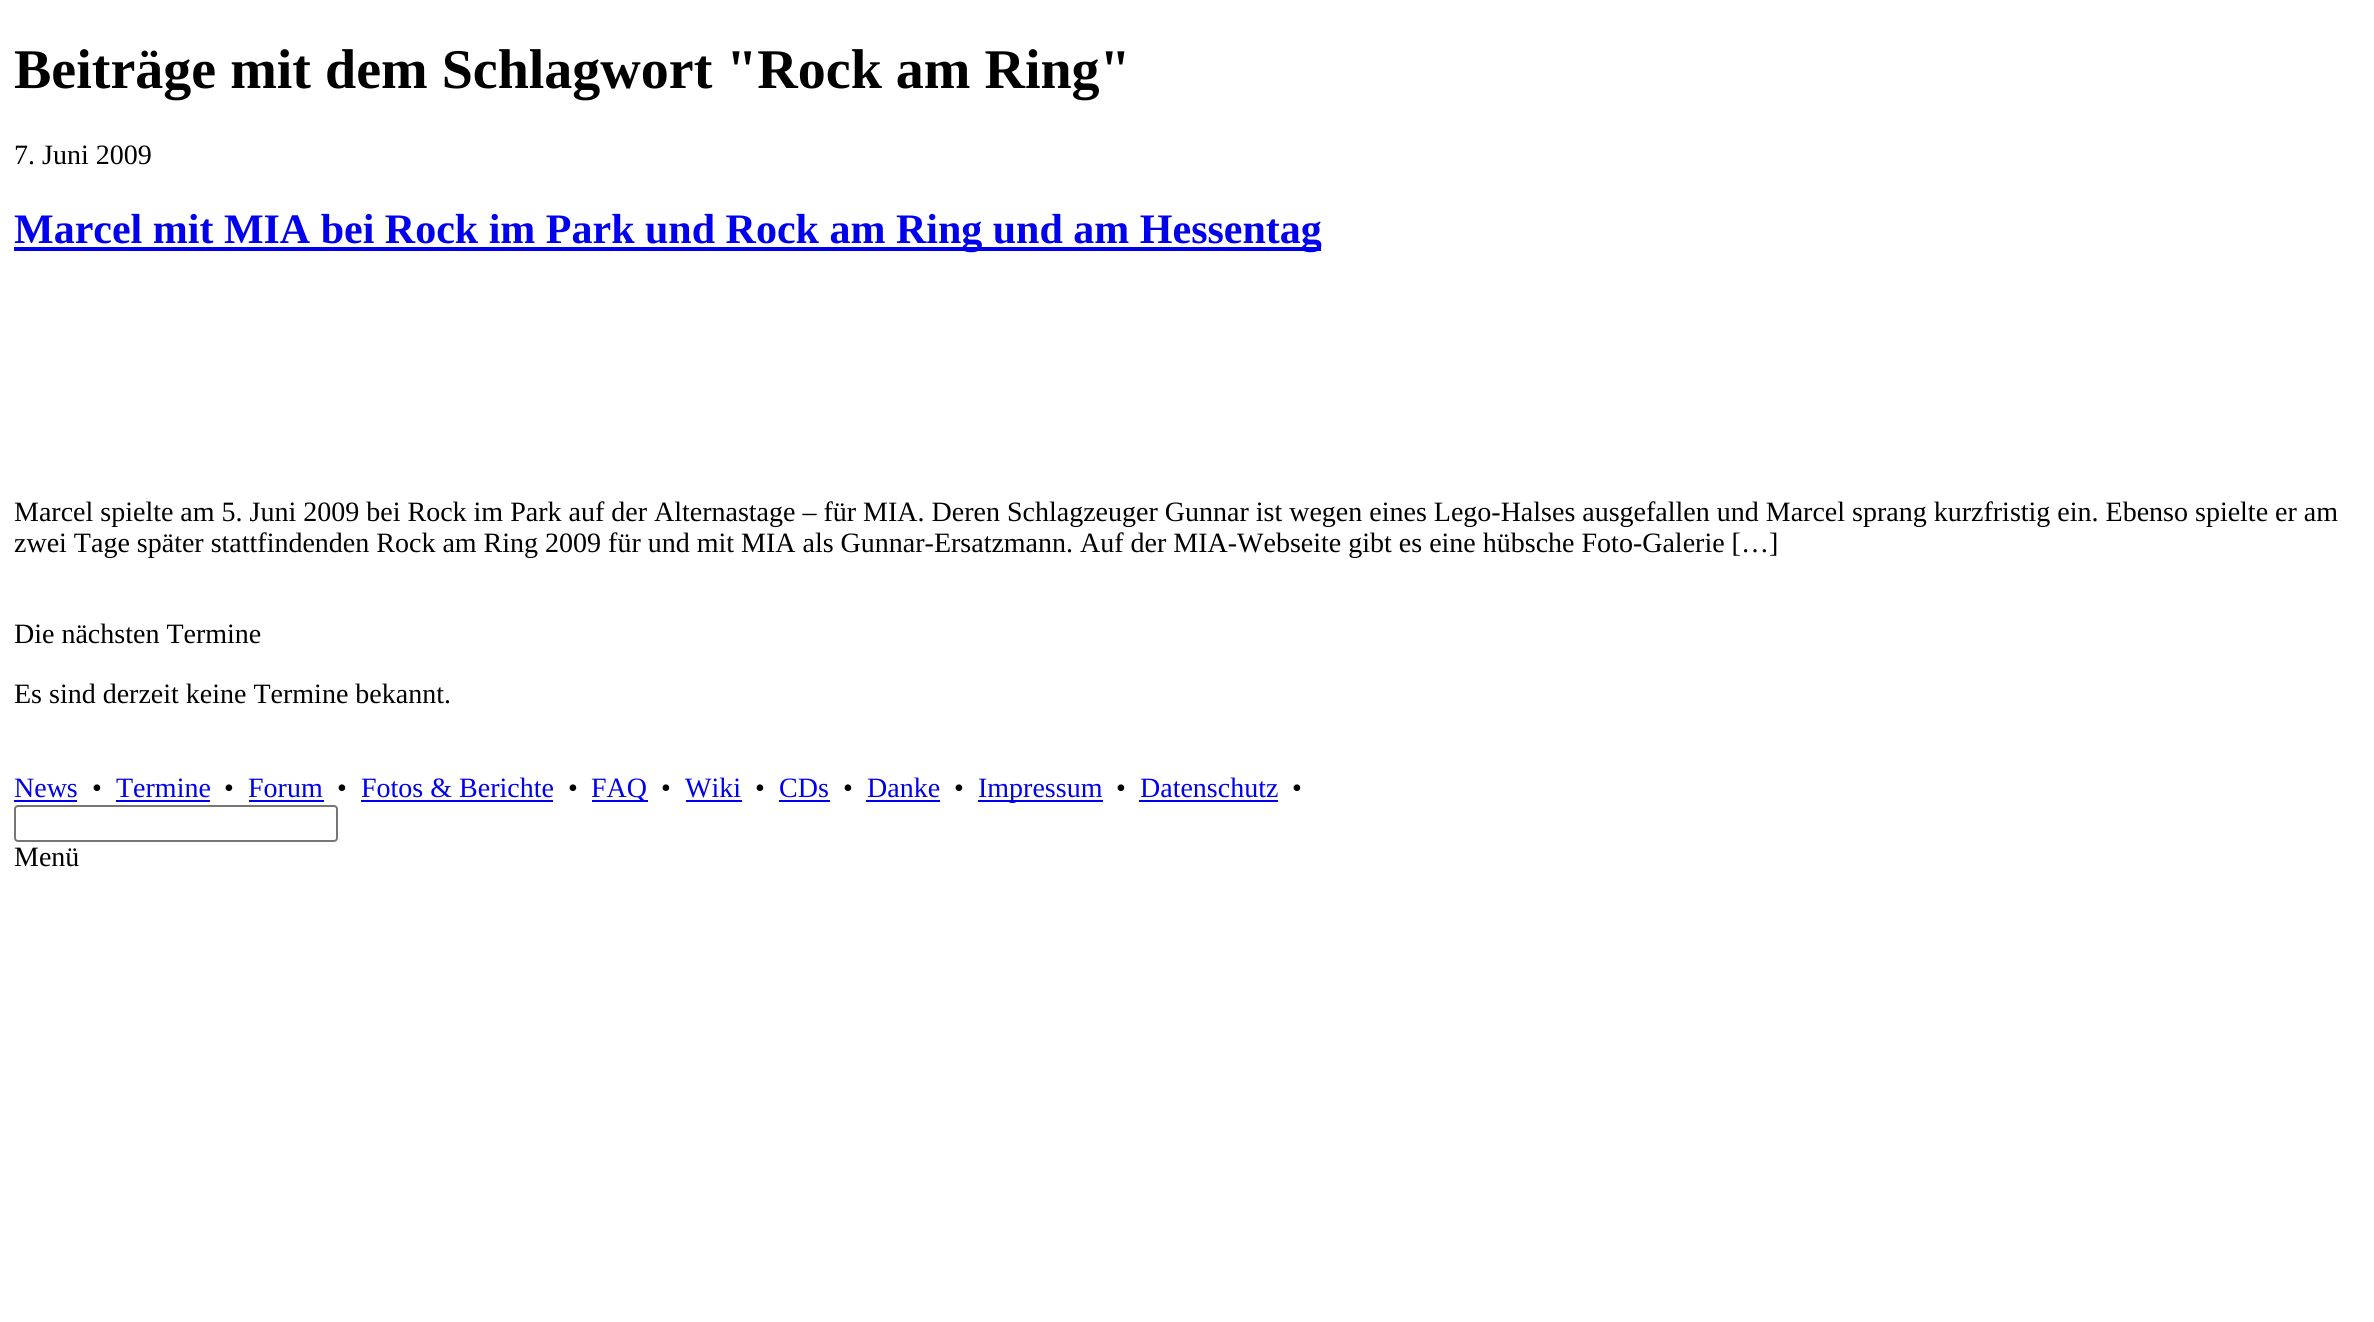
import math
import cairo


def use_color(cr, r, g, b):
  cr.set_source_rgb(r / 255, g / 255, b / 255)

def text(cr, x, y, s, family, size, color, bold=False, italic=False):
  cr.select_font_face(family, cairo.FONT_SLANT_ITALIC if italic else cairo.FONT_SLANT_NORMAL, cairo.FONT_WEIGHT_BOLD if bold else cairo.FONT_WEIGHT_NORMAL)
  cr.set_font_size(size)
  use_color(cr, *color)
  cr.move_to(x, y)
  cr.show_text(s)

def box(cr, x, y, w, h, *color):
  use_color(cr, *color)
  cr.rectangle(x, y, w, h)
  cr.fill()

def round_rect(cr, x, y, w, h, r):
  cr.new_sub_path()
  for i, (u, v) in enumerate([(x + w - r, y + h - r), (x + r, y + h - r), (x + r, y + r), (x + w - r, y + r)]):
    cr.arc(u, v, r, i * math.pi / 2, (i + 1) * math.pi / 2)
  cr.close_path()

def draw(cr):
  use_color(cr, 255, 255, 255)
  cr.paint()
  box(cr, 14, 247, 1307, 4, 0, 0, 238)
  box(cr, 14, 800, 63, 2, 0, 0, 238)
  box(cr, 116, 800, 94, 2, 0, 0, 238)
  box(cr, 249, 800, 75, 2, 0, 0, 238)
  box(cr, 361, 800, 192, 2, 0, 0, 238)
  box(cr, 592, 800, 56, 2, 0, 0, 238)
  box(cr, 686, 800, 56, 2, 0, 0, 238)
  box(cr, 779, 800, 51, 2, 0, 0, 238)
  box(cr, 866, 800, 74, 2, 0, 0, 238)
  box(cr, 978, 800, 125, 2, 0, 0, 238)
  box(cr, 1139, 800, 139, 2, 0, 0, 238)
  round_rect(cr, 15, 806, 322, 35, 3)
  use_color(cr, 118, 118, 118)
  cr.stroke()
  text(cr, 14, 88, "Beiträge mit dem Schlagwort \"Rock am Ring\"", "Liberation Serif", 56, (0, 0, 0), bold=True)
  text(cr, 14, 164, "7. Juni 2009", "Liberation Serif", 28, (0, 0, 0))
  text(cr, 14, 243, "Marcel mit MIA bei Rock im Park und Rock am Ring und am Hessentag", "Liberation Serif", 42, (0, 0, 238), bold=True)
  text(cr, 14, 521, "Marcel spielte am 5. Juni 2009 bei Rock im Park auf der Alternastage – für MIA. Deren Schlagzeuger Gunnar ist wegen eines Lego-Halses ausgefallen und Marcel sprang kurzfristig ein. Ebenso spielte er am", "Liberation Serif", 28, (0, 0, 0))
  text(cr, 14, 552, "zwei Tage später stattfindenden Rock am Ring 2009 für und mit MIA als Gunnar-Ersatzmann. Auf der MIA-Webseite gibt es eine hübsche Foto-Galerie […]", "Liberation Serif", 28, (0, 0, 0))
  text(cr, 14, 643, "Die nächsten Termine", "Liberation Serif", 28, (0, 0, 0))
  text(cr, 14, 703, "Es sind derzeit keine Termine bekannt.", "Liberation Serif", 28, (0, 0, 0))
  text(cr, 14, 797, "News", "Liberation Serif", 28, (0, 0, 238))
  text(cr, 92, 797, "•", "Liberation Serif", 28, (0, 0, 0))
  text(cr, 116, 797, "Termine", "Liberation Serif", 28, (0, 0, 238))
  text(cr, 224, 797, "•", "Liberation Serif", 28, (0, 0, 0))
  text(cr, 248, 797, "Forum", "Liberation Serif", 28, (0, 0, 238))
  text(cr, 337, 797, "•", "Liberation Serif", 28, (0, 0, 0))
  text(cr, 361, 797, "Fotos & Berichte", "Liberation Serif", 28, (0, 0, 238))
  text(cr, 568, 797, "•", "Liberation Serif", 28, (0, 0, 0))
  text(cr, 591, 797, "FAQ", "Liberation Serif", 28, (0, 0, 238))
  text(cr, 661, 797, "•", "Liberation Serif", 28, (0, 0, 0))
  text(cr, 685, 797, "Wiki", "Liberation Serif", 28, (0, 0, 238))
  text(cr, 755, 797, "•", "Liberation Serif", 28, (0, 0, 0))
  text(cr, 779, 797, "CDs", "Liberation Serif", 28, (0, 0, 238))
  text(cr, 843, 797, "•", "Liberation Serif", 28, (0, 0, 0))
  text(cr, 867, 797, "Danke", "Liberation Serif", 28, (0, 0, 238))
  text(cr, 954, 797, "•", "Liberation Serif", 28, (0, 0, 0))
  text(cr, 978, 797, "Impressum", "Liberation Serif", 28, (0, 0, 238))
  text(cr, 1116, 797, "•", "Liberation Serif", 28, (0, 0, 0))
  text(cr, 1140, 797, "Datenschutz", "Liberation Serif", 28, (0, 0, 238))
  text(cr, 1292, 797, "•", "Liberation Serif", 28, (0, 0, 0))
  text(cr, 14, 866, "Menü", "Liberation Serif", 28, (0, 0, 0))


surface = cairo.ImageSurface(cairo.FORMAT_RGB24, 2374, 1322)
cr = cairo.Context(surface)
options = cairo.FontOptions()
options.set_hint_metrics(cairo.HINT_METRICS_OFF)
options.set_hint_style(cairo.HINT_STYLE_NONE)
cr.set_font_options(options)
cr.set_miter_limit(4)
draw(cr)
surface.write_to_png("out.png")
